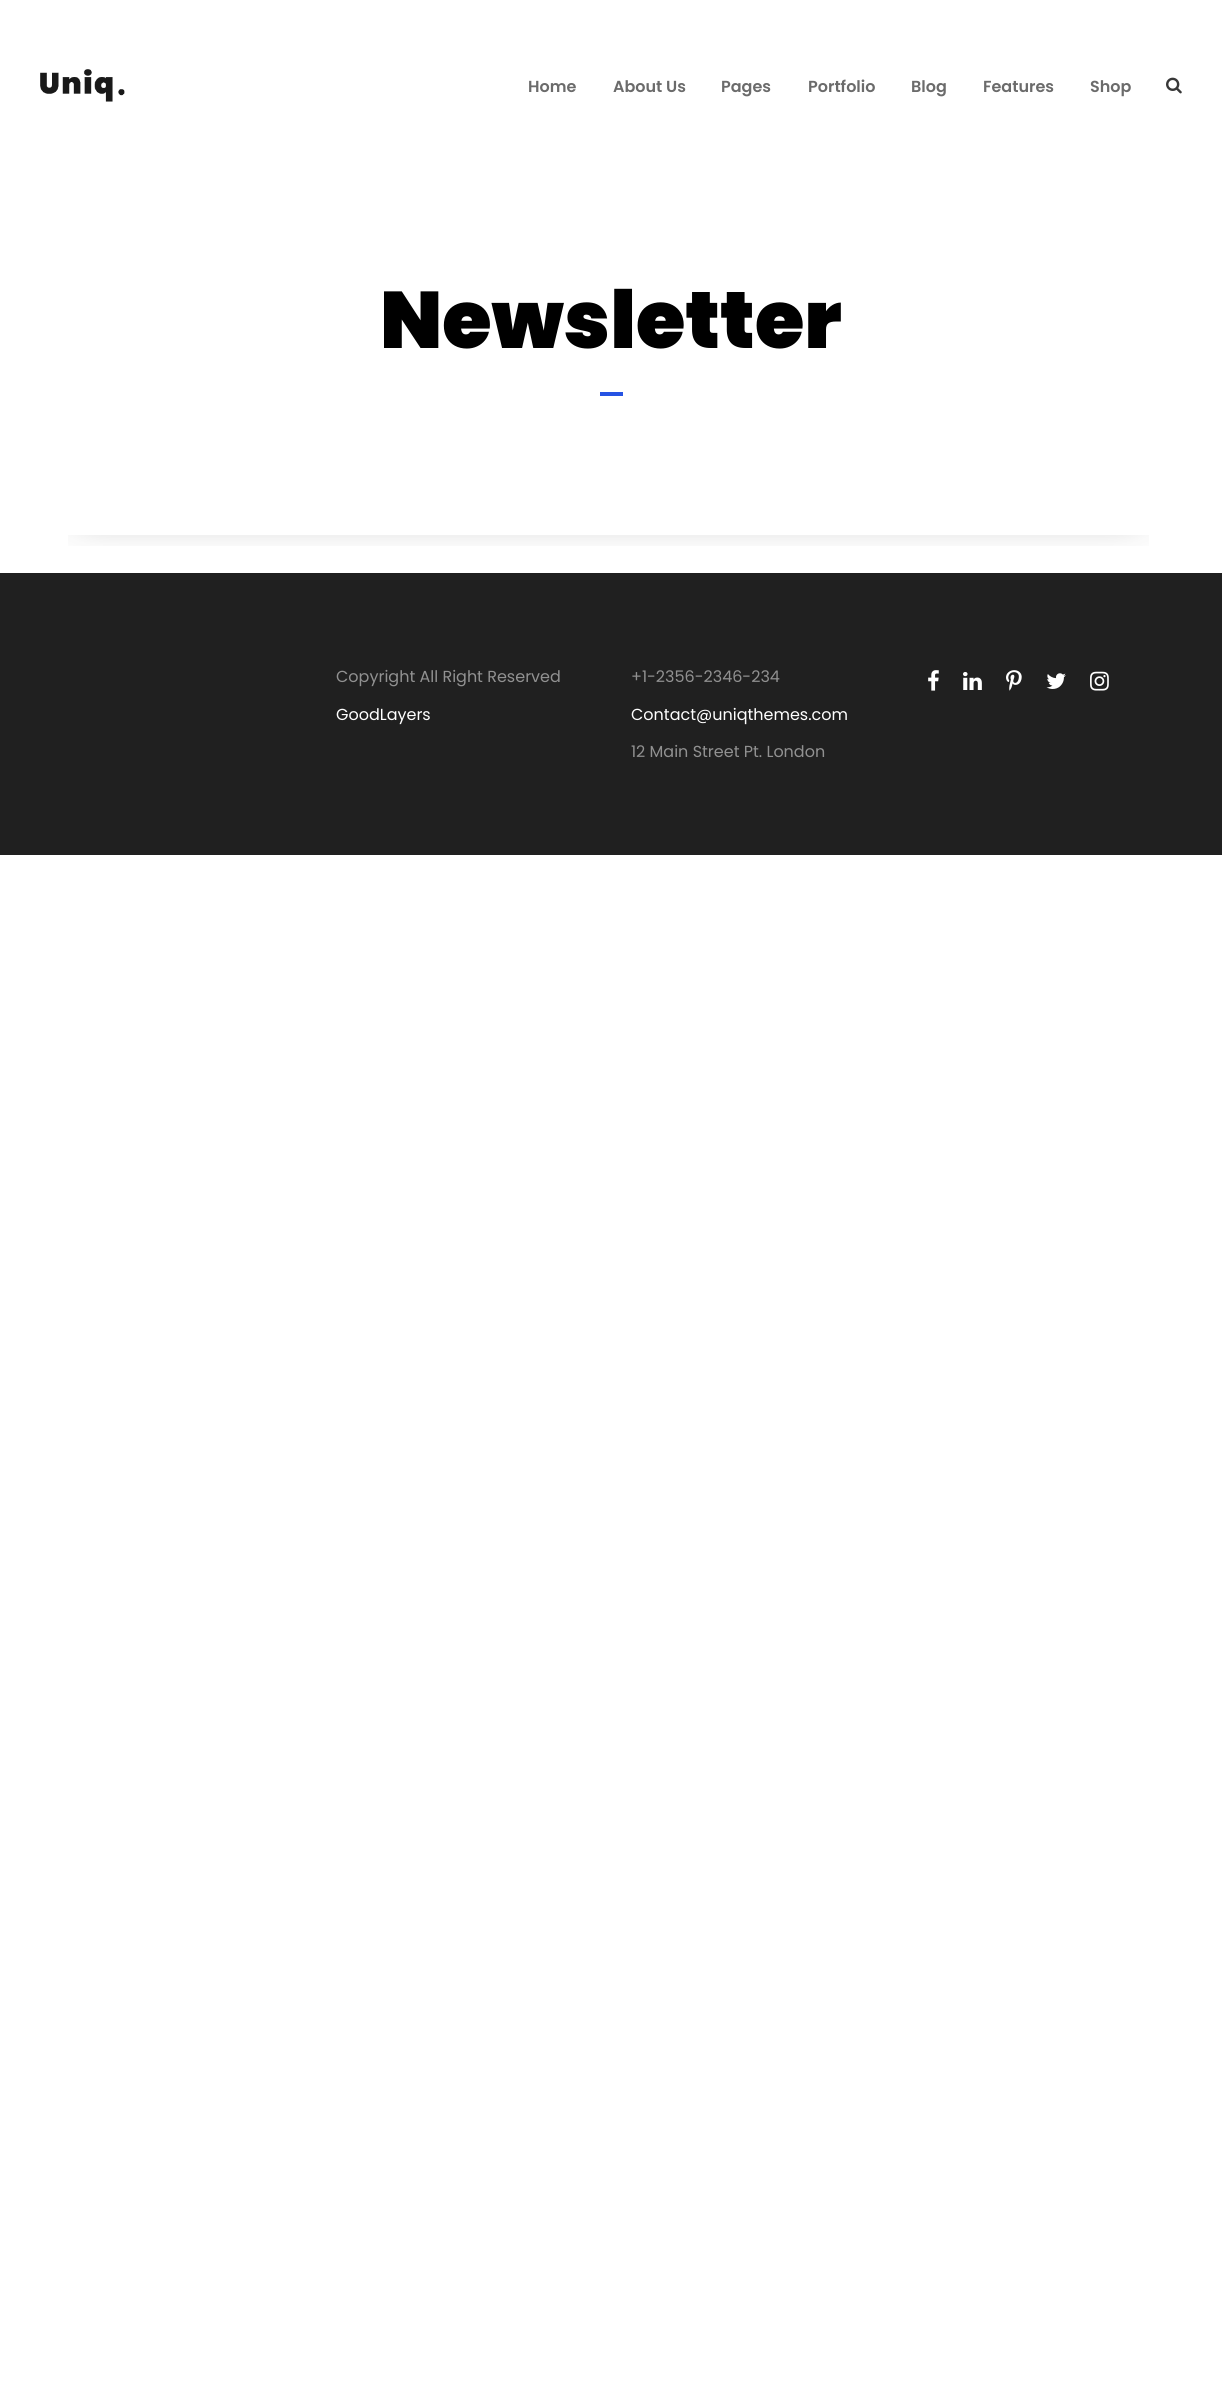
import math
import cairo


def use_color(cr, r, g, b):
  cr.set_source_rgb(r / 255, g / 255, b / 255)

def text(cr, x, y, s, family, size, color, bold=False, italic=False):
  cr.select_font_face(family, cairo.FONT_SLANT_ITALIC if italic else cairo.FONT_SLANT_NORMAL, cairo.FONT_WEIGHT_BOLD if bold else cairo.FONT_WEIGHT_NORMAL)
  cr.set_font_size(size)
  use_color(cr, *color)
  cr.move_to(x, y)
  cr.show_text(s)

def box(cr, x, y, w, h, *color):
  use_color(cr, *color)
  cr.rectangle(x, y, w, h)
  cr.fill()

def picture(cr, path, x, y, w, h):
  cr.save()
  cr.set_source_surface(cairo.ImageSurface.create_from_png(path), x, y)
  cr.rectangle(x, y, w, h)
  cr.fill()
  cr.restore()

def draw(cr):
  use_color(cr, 255, 255, 255)
  cr.paint()
  picture(cr, "img_01.png", 40, 69, 85, 33)
  picture(cr, "img_02.png", 1166, 77, 16, 17)
  box(cr, 600, 392, 23, 4, 38, 83, 227)
  picture(cr, "img_03.png", 68, 535, 1081, 11)
  box(cr, 0, 573, 1222, 282, 32, 32, 32)
  picture(cr, "img_04.png", 928, 670, 11, 21)
  picture(cr, "img_05.png", 963, 672, 19, 18)
  picture(cr, "img_06.png", 1006, 670, 16, 21)
  picture(cr, "img_07.png", 1046, 673, 20, 16)
  picture(cr, "img_08.png", 1090, 671, 19, 20)
  text(cr, 528, 92, "Home", "Poppins SemiBold", 16, (107, 107, 107))
  text(cr, 613, 92, "About Us", "Poppins SemiBold", 16, (107, 107, 107))
  text(cr, 721, 92, "Pages", "Poppins SemiBold", 16, (107, 107, 107))
  text(cr, 808, 92, "Portfolio", "Poppins SemiBold", 16, (107, 107, 107))
  text(cr, 911, 92, "Blog", "Poppins SemiBold", 16, (107, 107, 107))
  text(cr, 983, 92, "Features", "Poppins SemiBold", 16, (107, 107, 107))
  text(cr, 1090, 92, "Shop", "Poppins SemiBold", 16, (107, 107, 107))
  text(cr, 380, 348, "Newsletter", "Poppins Black", 80, (0, 0, 0))
  text(cr, 336, 682, "Copyright All Right Reserved", "Poppins", 16, (145, 145, 145))
  text(cr, 336, 720, "GoodLayers", "Poppins", 16, (255, 255, 255))
  text(cr, 631, 682, "+1-2356-2346-234", "Poppins", 16, (145, 145, 145))
  text(cr, 631, 720, "Contact@uniqthemes.com", "Poppins", 16, (255, 255, 255))
  text(cr, 631, 757, "12 Main Street Pt. London", "Poppins", 16, (145, 145, 145))


surface = cairo.ImageSurface(cairo.FORMAT_RGB24, 1222, 2397)
cr = cairo.Context(surface)
options = cairo.FontOptions()
options.set_hint_metrics(cairo.HINT_METRICS_OFF)
options.set_hint_style(cairo.HINT_STYLE_NONE)
cr.set_font_options(options)
cr.set_miter_limit(4)
draw(cr)
surface.write_to_png("out.png")
